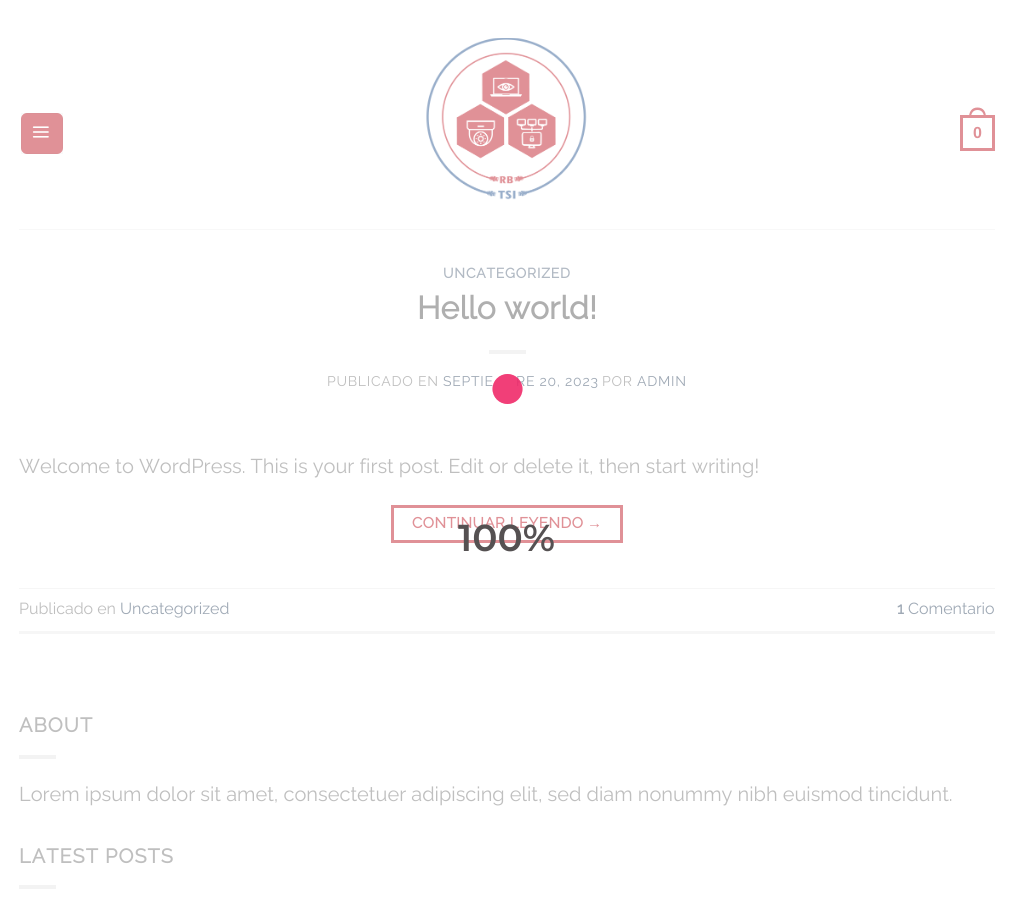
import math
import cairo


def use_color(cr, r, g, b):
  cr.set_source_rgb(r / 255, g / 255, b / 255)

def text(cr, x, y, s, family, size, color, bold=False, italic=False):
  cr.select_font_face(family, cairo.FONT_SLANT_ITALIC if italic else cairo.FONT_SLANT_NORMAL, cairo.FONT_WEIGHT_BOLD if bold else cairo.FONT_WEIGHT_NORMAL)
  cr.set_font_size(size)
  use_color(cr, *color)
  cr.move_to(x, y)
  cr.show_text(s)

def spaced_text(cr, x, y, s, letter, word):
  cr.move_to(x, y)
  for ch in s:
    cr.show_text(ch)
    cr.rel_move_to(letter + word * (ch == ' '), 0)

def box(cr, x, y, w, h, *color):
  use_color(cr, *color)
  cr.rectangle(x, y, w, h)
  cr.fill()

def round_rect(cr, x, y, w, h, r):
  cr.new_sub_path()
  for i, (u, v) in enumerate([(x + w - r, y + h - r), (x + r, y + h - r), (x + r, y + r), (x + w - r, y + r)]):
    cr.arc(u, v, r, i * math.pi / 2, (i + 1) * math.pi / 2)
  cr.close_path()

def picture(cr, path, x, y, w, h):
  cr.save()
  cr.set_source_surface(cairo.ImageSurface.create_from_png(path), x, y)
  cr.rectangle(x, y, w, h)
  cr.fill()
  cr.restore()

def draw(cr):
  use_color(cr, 255, 255, 255)
  cr.paint()
  use_color(cr, 224, 145, 151)
  round_rect(cr, 21, 113, 42, 41, 6)
  cr.fill()
  cr.rectangle(21.5, 113.5, 41, 40)
  cr.set_source_rgba(0.529, 0.529, 0.529, 0.05)
  cr.set_line_width(1)
  cr.stroke()
  picture(cr, "img_01.png", 32, 126, 17, 12)
  picture(cr, "img_02.png", 426, 38, 161, 162)
  cr.rectangle(961.5, 116.5, 32, 33)
  use_color(cr, 224, 145, 151)
  cr.set_line_width(3)
  cr.stroke()
  cr.set_fill_rule(cairo.FILL_RULE_EVEN_ODD)
  cr.new_path()
  cr.move_to(977.5, 107.5)
  cr.curve_to(983.5, 107.5, 986, 112, 986, 117.5)
  cr.line_to(969, 117.5)
  cr.curve_to(969, 112, 971.5, 107.5, 977.5, 107.5)
  cr.close_path()
  cr.move_to(977.5, 110)
  cr.curve_to(982, 110, 984, 113.5, 984, 117.5)
  cr.line_to(971, 117.5)
  cr.curve_to(971, 113.5, 973, 110, 977.5, 110)
  cr.close_path()
  cr.fill()
  box(cr, 19, 229, 976, 1, 248, 248, 248)
  box(cr, 489, 350, 37, 4, 243, 243, 243)
  cr.rectangle(392.5, 506.5, 229, 35)
  use_color(cr, 224, 145, 151)
  cr.stroke()
  box(cr, 19, 588, 976, 1, 246, 246, 246)
  box(cr, 19, 631, 976, 3, 246, 246, 246)
  box(cr, 19, 755, 37, 4, 243, 243, 243)
  box(cr, 19, 885, 37, 4, 243, 243, 243)
  text(cr, 973, 138, "0", "Liberation Sans", 16, (224, 145, 151), bold=True)
  cr.select_font_face("Raleway", cairo.FONT_SLANT_NORMAL, cairo.FONT_WEIGHT_BOLD)
  cr.set_font_size(14)
  use_color(cr, 178, 186, 196)
  spaced_text(cr, 443, 278, "UNCATEGORIZED", 0.75, 0)
  text(cr, 417, 319, "Hello world!", "Raleway", 32, (175, 175, 175), bold=True)
  cr.select_font_face("Raleway Thin")
  cr.set_font_size(14)
  use_color(cr, 191, 191, 191)
  spaced_text(cr, 327, 386, "PUBLICADO EN", 0.75, 0)
  use_color(cr, 159, 169, 181)
  spaced_text(cr, 443, 386, "SEPTIE", 0.75, 0)
  spaced_text(cr, 516, 386, "RE 20, 2023", 0.75, 0)
  use_color(cr, 191, 191, 191)
  spaced_text(cr, 602, 386, "POR", 0.75, 0)
  use_color(cr, 159, 169, 181)
  spaced_text(cr, 637, 386, "ADMIN", 0.75, 0)
  text(cr, 19, 473, "Welcome to WordPress. This is your first post. Edit or delete it, then start writing!", "Raleway Thin", 20, (191, 191, 191))
  cr.select_font_face("Raleway", cairo.FONT_SLANT_NORMAL, cairo.FONT_WEIGHT_BOLD)
  cr.set_font_size(15)
  use_color(cr, 224, 145, 151)
  spaced_text(cr, 412, 528, "CONTINUAR LEYENDO", 0.5, 0)
  cr.select_font_face("Liberation Sans", cairo.FONT_SLANT_NORMAL, cairo.FONT_WEIGHT_BOLD)
  spaced_text(cr, 587, 528, "→", 0.5, 0)
  text(cr, 19, 614, "Publicado en", "Raleway Thin", 16, (191, 191, 191))
  text(cr, 120, 614, "Uncategorized", "Raleway Thin", 16, (159, 169, 181))
  text(cr, 897, 614, "1", "Raleway", 16, (159, 169, 181), bold=True)
  text(cr, 908, 614, "Comentario", "Raleway Thin", 16, (159, 169, 181))
  cr.select_font_face("Raleway", cairo.FONT_SLANT_NORMAL, cairo.FONT_WEIGHT_BOLD)
  cr.set_font_size(20)
  use_color(cr, 191, 191, 191)
  spaced_text(cr, 19, 732, "ABOUT", 1, 0)
  text(cr, 19, 801, "Lorem ipsum dolor sit amet, consectetuer adipiscing elit, sed diam nonummy nibh euismod tincidunt.", "Raleway Thin", 20, (191, 191, 191))
  cr.select_font_face("Raleway", cairo.FONT_SLANT_NORMAL, cairo.FONT_WEIGHT_BOLD)
  spaced_text(cr, 19, 863, "LATEST POSTS", 1, 0)
  cr.set_source_rgba(0.996, 0.443, 0.553, 0.66)
  cr.new_path()
  cr.arc(507.5, 389, 15, 0, 2 * math.pi)
  cr.fill()
  cr.set_source_rgba(0.914, 0.051, 0.353, 0.66)
  cr.arc(507.5, 389, 15, 0, 2 * math.pi)
  cr.fill()
  text(cr, 458, 551, "100%", "Montserrat SemiBold", 37.5, (85, 81, 82))


surface = cairo.ImageSurface(cairo.FORMAT_RGB24, 1013, 902)
cr = cairo.Context(surface)
options = cairo.FontOptions()
options.set_hint_metrics(cairo.HINT_METRICS_OFF)
options.set_hint_style(cairo.HINT_STYLE_NONE)
cr.set_font_options(options)
cr.set_miter_limit(4)
draw(cr)
surface.write_to_png("out.png")
